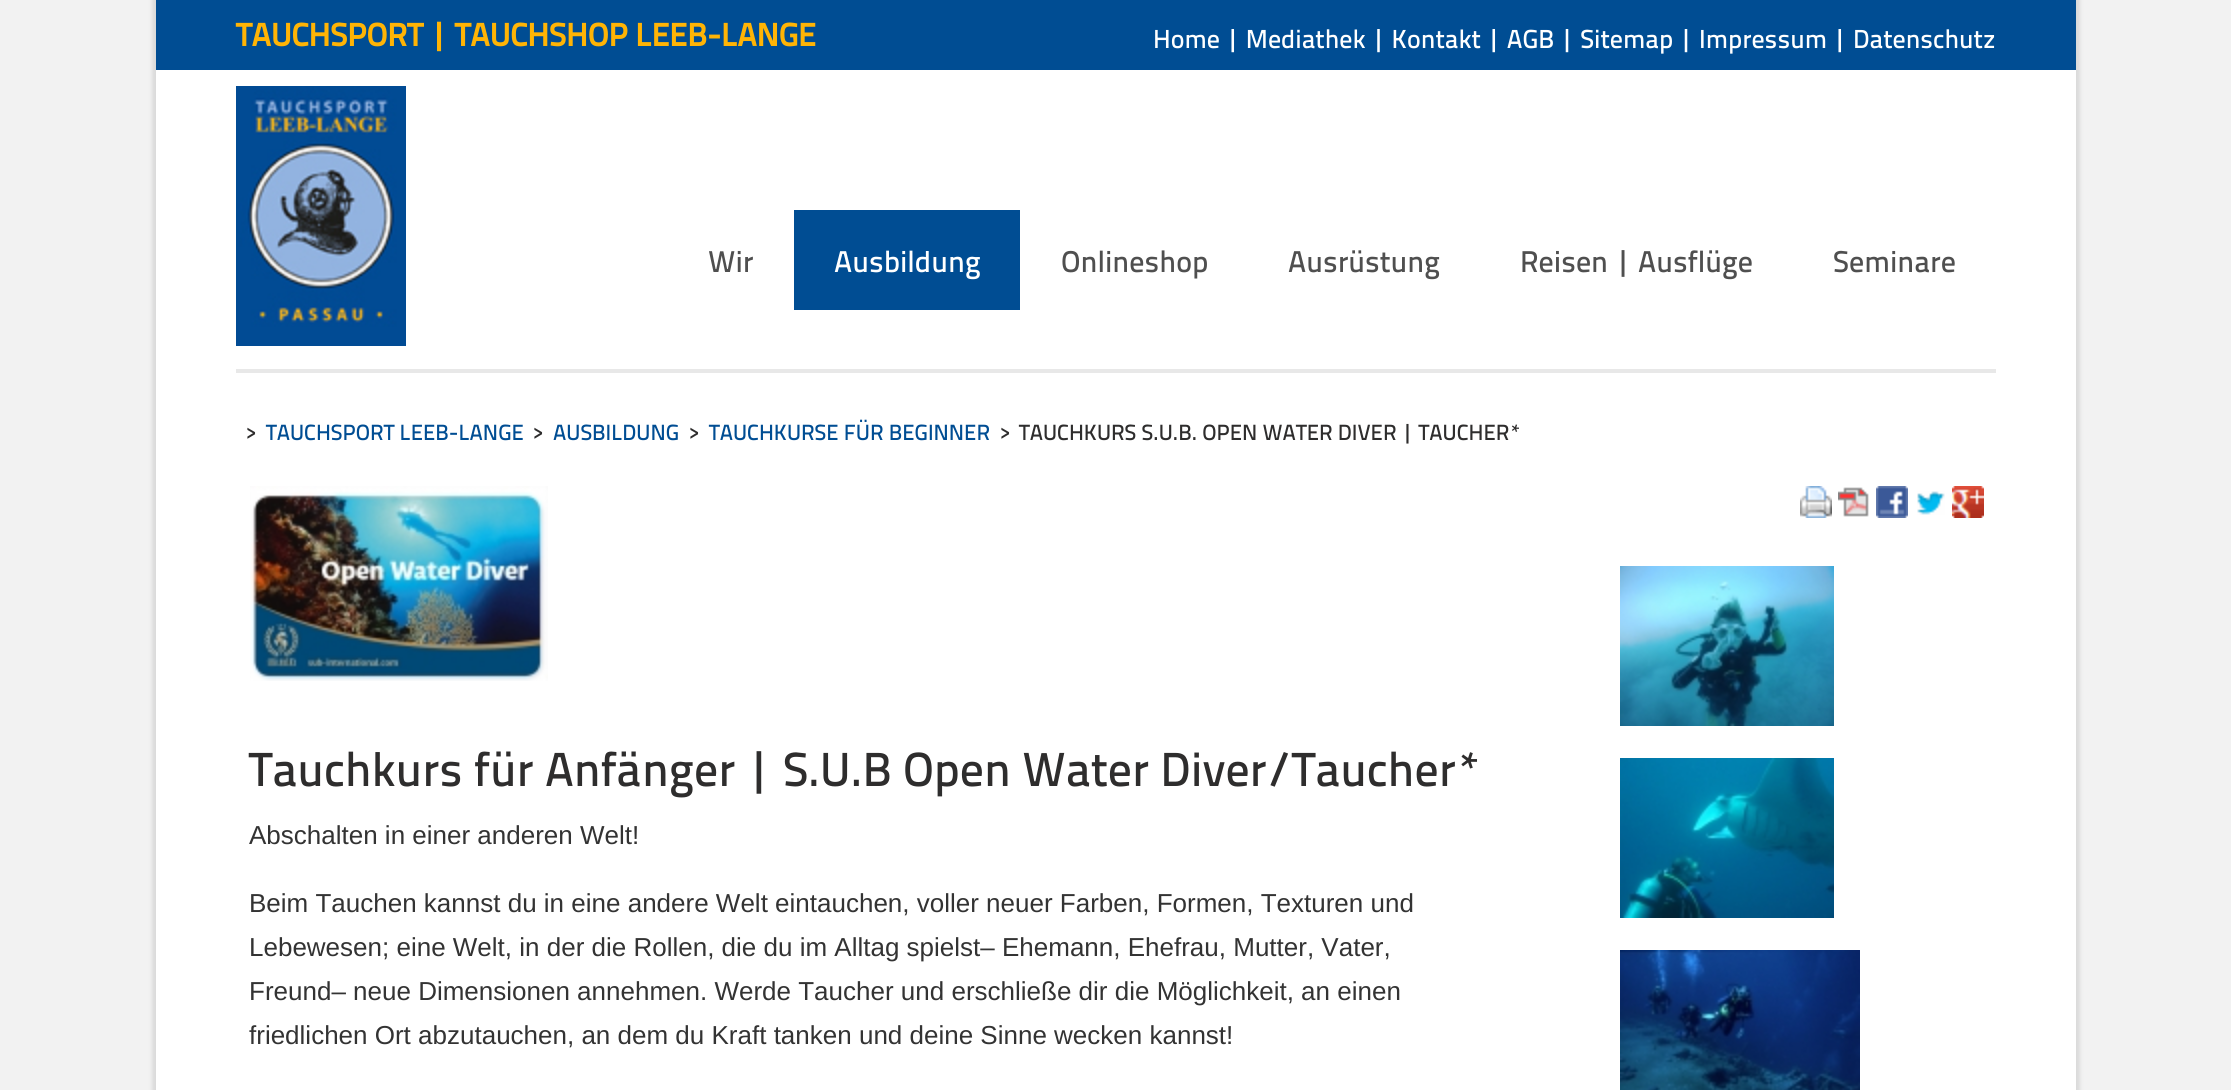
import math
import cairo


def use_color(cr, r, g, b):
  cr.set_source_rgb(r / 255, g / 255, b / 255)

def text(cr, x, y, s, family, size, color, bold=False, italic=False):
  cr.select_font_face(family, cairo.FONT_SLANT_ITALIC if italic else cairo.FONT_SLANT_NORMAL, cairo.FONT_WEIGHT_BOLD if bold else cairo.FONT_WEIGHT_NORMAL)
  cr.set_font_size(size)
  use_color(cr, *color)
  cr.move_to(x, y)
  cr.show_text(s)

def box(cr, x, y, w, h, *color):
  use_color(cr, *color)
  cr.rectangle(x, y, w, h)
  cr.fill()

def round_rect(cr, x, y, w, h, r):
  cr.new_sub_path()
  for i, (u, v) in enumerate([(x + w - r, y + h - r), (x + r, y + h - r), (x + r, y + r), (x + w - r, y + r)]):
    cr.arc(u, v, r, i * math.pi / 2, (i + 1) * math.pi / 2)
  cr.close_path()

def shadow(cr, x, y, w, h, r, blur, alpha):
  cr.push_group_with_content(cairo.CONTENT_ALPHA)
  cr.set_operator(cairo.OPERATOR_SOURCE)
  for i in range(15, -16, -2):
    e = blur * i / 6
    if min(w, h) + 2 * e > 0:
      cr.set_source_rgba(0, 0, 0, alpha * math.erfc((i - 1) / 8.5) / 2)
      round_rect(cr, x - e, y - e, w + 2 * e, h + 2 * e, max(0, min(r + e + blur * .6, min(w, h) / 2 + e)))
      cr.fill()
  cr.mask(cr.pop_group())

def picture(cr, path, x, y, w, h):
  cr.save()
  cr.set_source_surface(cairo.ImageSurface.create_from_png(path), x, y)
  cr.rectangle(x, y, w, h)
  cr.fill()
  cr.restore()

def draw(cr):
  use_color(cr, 242, 242, 242)
  cr.paint()
  use_color(cr, 0, 0, 0)
  shadow(cr, 152, -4, 1928, 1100, 0, 2, 0.1)
  box(cr, 156, 70, 1920, 1020, 255, 255, 255)
  box(cr, 156, 0, 1920, 70, 0, 77, 147)
  picture(cr, "img_01.png", 236, 86, 170, 260)
  box(cr, 794, 210, 226, 100, 0, 77, 147)
  box(cr, 236, 369, 1760, 4, 232, 232, 232)
  picture(cr, "img_02.png", 1800, 486, 32, 32)
  picture(cr, "img_03.png", 1838, 487, 31, 30)
  picture(cr, "img_04.png", 1876, 486, 32, 32)
  picture(cr, "img_05.png", 1917, 491, 28, 24)
  picture(cr, "img_06.png", 1952, 486, 32, 32)
  picture(cr, "img_07.png", 250, 486, 298, 195)
  picture(cr, "img_08.png", 1620, 566, 214, 160)
  picture(cr, "img_09.png", 1620, 758, 214, 160)
  picture(cr, "img_10.png", 1620, 950, 240, 140)
  text(cr, 236, 46, "TAUCHSPORT | TAUCHSHOP LEEB-LANGE", "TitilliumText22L", 32, (255, 180, 5), bold=True)
  text(cr, 1153, 48, "Home | Mediathek | Kontakt | AGB | Sitemap | Impressum | Datenschutz", "TitilliumText22L Medium", 26, (255, 255, 255))
  text(cr, 708, 272, "Wir", "TitilliumText22L Medium", 30, (79, 79, 79))
  text(cr, 834, 272, "Ausbildung", "TitilliumText22L Medium", 30, (255, 255, 255))
  text(cr, 1061, 272, "Onlineshop", "TitilliumText22L Medium", 30, (79, 79, 79))
  text(cr, 1288, 272, "Ausrüstung", "TitilliumText22L Medium", 30, (79, 79, 79))
  text(cr, 1520, 272, "Reisen | Ausflüge", "TitilliumText22L Medium", 30, (79, 79, 79))
  text(cr, 1833, 272, "Seminare", "TitilliumText22L Medium", 30, (79, 79, 79))
  text(cr, 246, 440, ">", "TitilliumText22L Medium", 22, (46, 45, 45))
  text(cr, 266, 440, "TAUCHSPORT LEEB-LANGE", "TitilliumText22L Medium", 22, (0, 77, 147))
  text(cr, 533, 440, ">", "TitilliumText22L Medium", 22, (46, 45, 45))
  text(cr, 553, 440, "AUSBILDUNG", "TitilliumText22L Medium", 22, (0, 77, 147))
  text(cr, 689, 440, ">", "TitilliumText22L Medium", 22, (46, 45, 45))
  text(cr, 709, 440, "TAUCHKURSE FÜR BEGINNER", "TitilliumText22L Medium", 22, (0, 77, 147))
  text(cr, 1000, 440, ">", "TitilliumText22L Medium", 22, (46, 45, 45))
  text(cr, 1019, 440, "TAUCHKURS S.U.B. OPEN WATER DIVER | TAUCHER*", "TitilliumText22L Medium", 22, (46, 45, 45))
  text(cr, 249, 786, "Tauchkurs für Anfänger | S.U.B Open Water Diver/Taucher*", "TitilliumText22L Medium", 47.7, (46, 45, 45))
  text(cr, 249, 844, "Abschalten in einer anderen Welt!", "Liberation Sans", 26, (51, 51, 51))
  text(cr, 249, 912, "Beim Tauchen kannst du in eine andere Welt eintauchen, voller neuer Farben, Formen, Texturen und", "Liberation Sans", 26, (51, 51, 51))
  text(cr, 249, 956, "Lebewesen; eine Welt, in der die Rollen, die du im Alltag spielst– Ehemann, Ehefrau, Mutter, Vater,", "Liberation Sans", 26, (51, 51, 51))
  text(cr, 249, 1000, "Freund– neue Dimensionen annehmen. Werde Taucher und erschließe dir die Möglichkeit, an einen", "Liberation Sans", 26, (51, 51, 51))
  text(cr, 249, 1044, "friedlichen Ort abzutauchen, an dem du Kraft tanken und deine Sinne wecken kannst!", "Liberation Sans", 26, (51, 51, 51))


surface = cairo.ImageSurface(cairo.FORMAT_RGB24, 2231, 1090)
cr = cairo.Context(surface)
options = cairo.FontOptions()
options.set_hint_metrics(cairo.HINT_METRICS_OFF)
options.set_hint_style(cairo.HINT_STYLE_NONE)
cr.set_font_options(options)
cr.set_miter_limit(4)
draw(cr)
surface.write_to_png("out.png")
